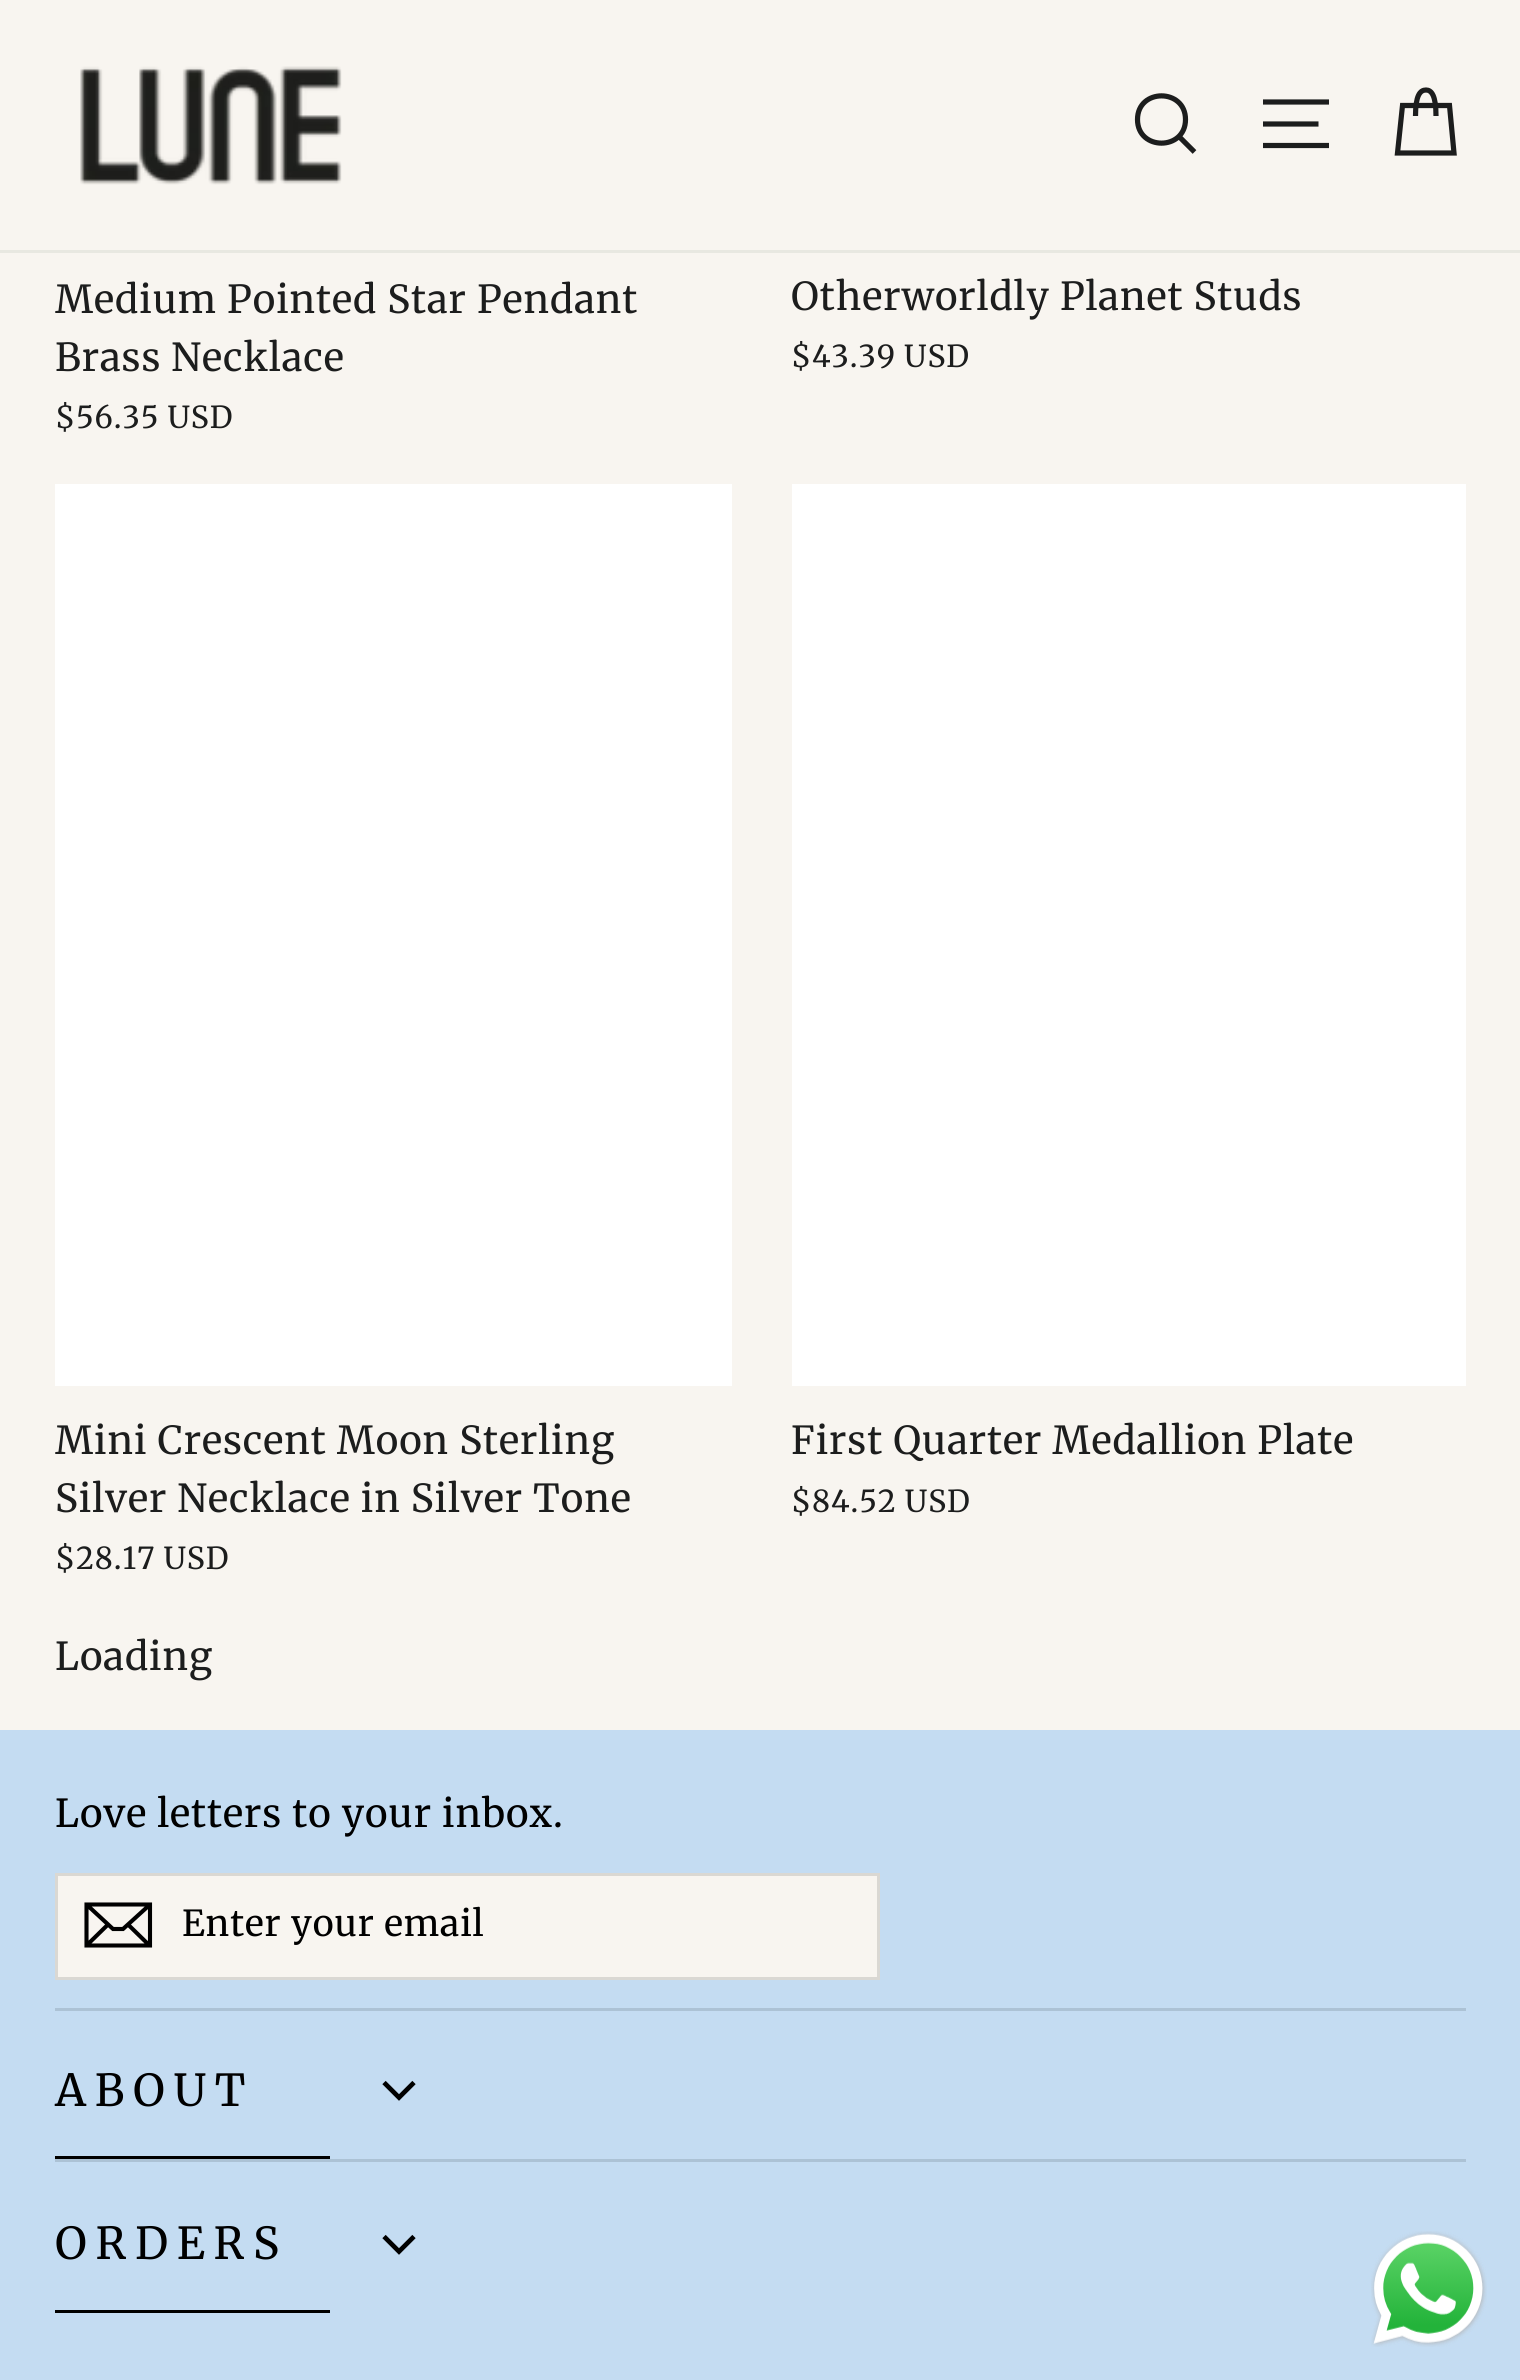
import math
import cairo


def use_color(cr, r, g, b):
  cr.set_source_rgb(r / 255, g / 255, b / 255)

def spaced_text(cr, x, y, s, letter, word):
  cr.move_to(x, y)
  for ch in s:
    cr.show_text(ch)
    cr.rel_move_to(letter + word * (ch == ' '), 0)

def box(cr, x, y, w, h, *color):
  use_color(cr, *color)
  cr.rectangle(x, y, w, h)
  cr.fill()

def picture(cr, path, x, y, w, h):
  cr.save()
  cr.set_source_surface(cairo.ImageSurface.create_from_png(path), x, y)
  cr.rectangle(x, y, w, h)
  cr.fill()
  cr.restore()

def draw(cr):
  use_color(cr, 248, 245, 240)
  cr.paint()
  box(cr, 0, 250, 1520, 3, 232, 232, 225)
  picture(cr, "img_01.png", 80, 66, 262, 119)
  cr.new_path()
  cr.move_to(1185.5, 119.5)
  cr.curve_to(1185.5, 151, 1137.5, 151, 1137.5, 119.5)
  cr.curve_to(1137.5, 88, 1185.5, 88, 1185.5, 119.5)
  cr.close_path()
  cr.move_to(1194.5, 152)
  cr.line_to(1179, 136.5)
  use_color(cr, 28, 29, 29)
  cr.set_line_width(5.2)
  cr.stroke()
  cr.new_path()
  cr.move_to(1263, 102)
  cr.line_to(1329, 102)
  cr.move_to(1263, 124)
  cr.line_to(1318.5, 124)
  cr.move_to(1263, 145.5)
  cr.line_to(1329, 145.5)
  cr.stroke()
  cr.new_path()
  cr.move_to(1415.5, 116)
  cr.curve_to(1415.5, 95.5, 1420, 90, 1426, 90)
  cr.curve_to(1431.5, 90, 1436, 95.5, 1436, 116)
  cr.stroke()
  cr.new_path()
  cr.move_to(1402.5, 105.5)
  cr.line_to(1449.5, 105.5)
  cr.line_to(1454, 153)
  cr.line_to(1397.5, 153)
  cr.close_path()
  cr.stroke()
  box(cr, 55, 484, 677, 902, 255, 255, 255)
  box(cr, 792, 484, 674, 902, 255, 255, 255)
  box(cr, 0, 1730, 1520, 650, 196, 220, 242)
  use_color(cr, 248, 245, 240)
  cr.rectangle(56.5, 1874.5, 822, 104)
  cr.fill_preserve()
  use_color(cr, 218, 216, 211)
  cr.set_line_width(3)
  cr.stroke()
  cr.new_path()
  cr.move_to(150, 1945.5)
  cr.line_to(86.5, 1945.5)
  cr.line_to(86.5, 1904.5)
  cr.line_to(150, 1904.5)
  cr.close_path()
  cr.move_to(86.5, 1904.5)
  cr.line_to(113, 1929)
  cr.line_to(123, 1929)
  cr.line_to(150, 1904.5)
  cr.move_to(108, 1924.5)
  cr.line_to(87, 1945)
  cr.move_to(149.5, 1945.5)
  cr.line_to(128, 1924.5)
  use_color(cr, 0, 0, 0)
  cr.set_line_width(4.1)
  cr.stroke()
  box(cr, 55, 2008, 1411, 3, 172, 194, 213)
  box(cr, 55, 2156, 275, 3, 0, 0, 0)
  cr.new_path()
  cr.move_to(384, 2082.5)
  cr.line_to(399, 2097.5)
  cr.line_to(414, 2082.5)
  cr.set_line_width(4.7)
  cr.stroke()
  box(cr, 55, 2159, 1411, 3, 172, 194, 213)
  box(cr, 55, 2310, 275, 3, 0, 0, 0)
  cr.new_path()
  cr.move_to(384, 2236.5)
  cr.line_to(399, 2251.5)
  cr.line_to(414, 2236.5)
  cr.stroke()
  picture(cr, "img_02.png", 1371, 2231, 116, 116)
  cr.select_font_face("Merriweather")
  cr.set_font_size(38.5)
  use_color(cr, 28, 29, 29)
  spaced_text(cr, 55, 313, "Medium Pointed Star Pendant", 0.95, 0)
  spaced_text(cr, 55, 371, "Brass Necklace", 0.95, 0)
  cr.set_font_size(30.25)
  spaced_text(cr, 55, 428, "$56.35 USD", 0.95, 0)
  cr.set_font_size(38.5)
  spaced_text(cr, 791, 310, "Otherworldly Planet Studs", 0.95, 0)
  cr.set_font_size(30.25)
  spaced_text(cr, 791, 367, "$43.39 USD", 0.95, 0)
  cr.set_font_size(38.5)
  spaced_text(cr, 55, 1454, "Mini Crescent Moon Sterling", 0.95, 0)
  spaced_text(cr, 55, 1512, "Silver Necklace in Silver Tone", 0.95, 0)
  cr.set_font_size(30.25)
  spaced_text(cr, 55, 1569, "$28.17 USD", 0.95, 0)
  cr.set_font_size(38.5)
  spaced_text(cr, 791, 1454, "First Quarter Medallion Plate", 0.95, 0)
  cr.set_font_size(30.25)
  spaced_text(cr, 791, 1512, "$84.52 USD", 0.95, 0)
  cr.set_font_size(38.5)
  spaced_text(cr, 55, 1670, "Loading", 0.95, 0)
  use_color(cr, 0, 0, 0)
  spaced_text(cr, 55, 1827, "Love letters to your inbox.", 0.95, 0)
  cr.set_font_size(35.75)
  spaced_text(cr, 182, 1936, "Enter your email", 0.9, 0)
  cr.set_font_size(44)
  spaced_text(cr, 55, 2106, "ABOUT", 8.75, 0)
  spaced_text(cr, 55, 2259, "ORDERS", 8.75, 0)


surface = cairo.ImageSurface(cairo.FORMAT_RGB24, 1520, 2380)
cr = cairo.Context(surface)
options = cairo.FontOptions()
options.set_hint_metrics(cairo.HINT_METRICS_OFF)
options.set_hint_style(cairo.HINT_STYLE_NONE)
cr.set_font_options(options)
cr.set_miter_limit(4)
draw(cr)
surface.write_to_png("out.png")
